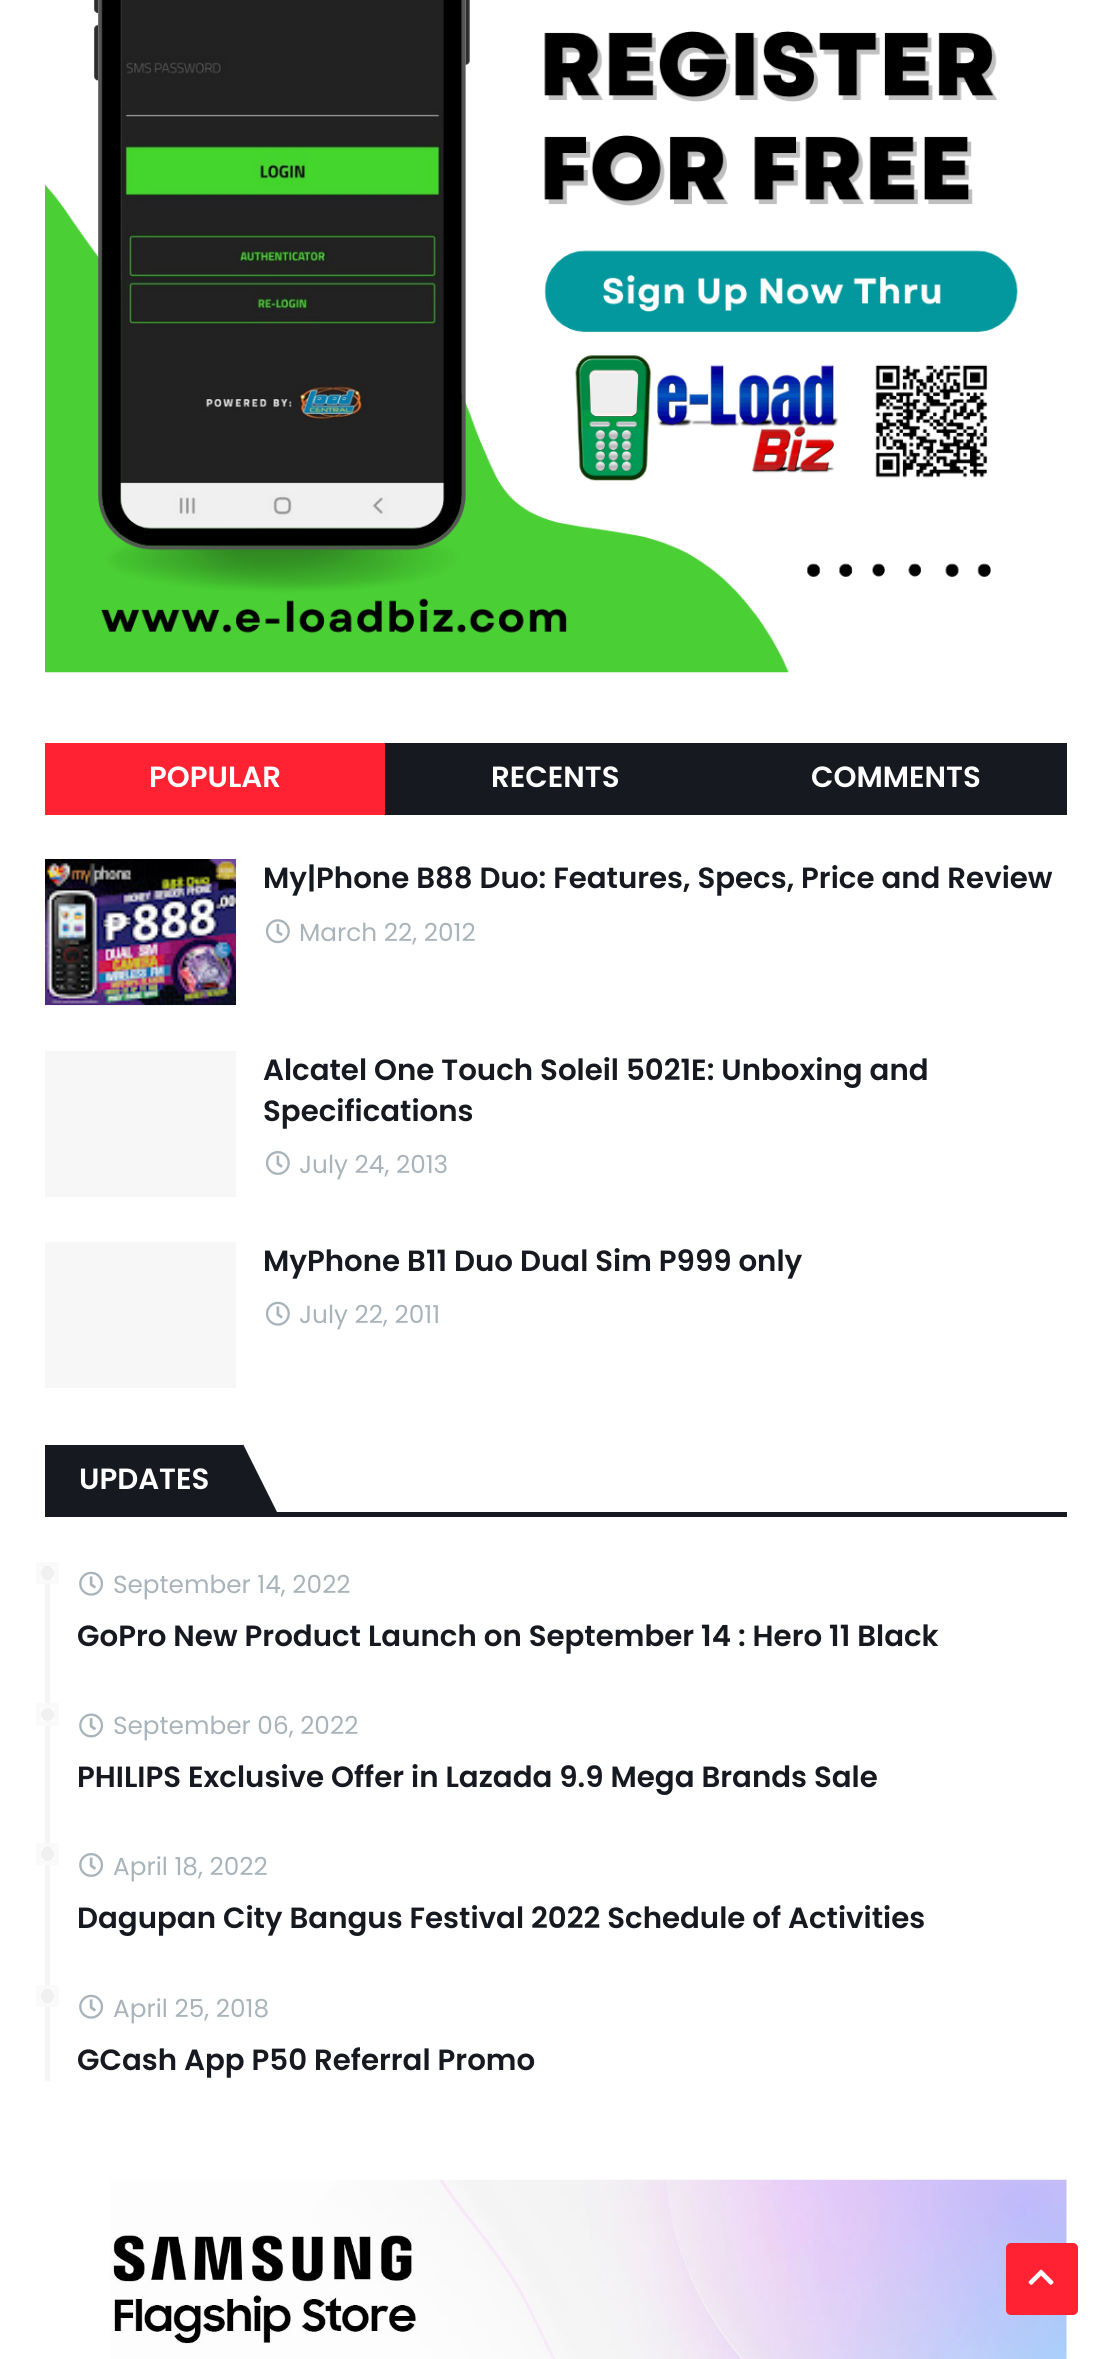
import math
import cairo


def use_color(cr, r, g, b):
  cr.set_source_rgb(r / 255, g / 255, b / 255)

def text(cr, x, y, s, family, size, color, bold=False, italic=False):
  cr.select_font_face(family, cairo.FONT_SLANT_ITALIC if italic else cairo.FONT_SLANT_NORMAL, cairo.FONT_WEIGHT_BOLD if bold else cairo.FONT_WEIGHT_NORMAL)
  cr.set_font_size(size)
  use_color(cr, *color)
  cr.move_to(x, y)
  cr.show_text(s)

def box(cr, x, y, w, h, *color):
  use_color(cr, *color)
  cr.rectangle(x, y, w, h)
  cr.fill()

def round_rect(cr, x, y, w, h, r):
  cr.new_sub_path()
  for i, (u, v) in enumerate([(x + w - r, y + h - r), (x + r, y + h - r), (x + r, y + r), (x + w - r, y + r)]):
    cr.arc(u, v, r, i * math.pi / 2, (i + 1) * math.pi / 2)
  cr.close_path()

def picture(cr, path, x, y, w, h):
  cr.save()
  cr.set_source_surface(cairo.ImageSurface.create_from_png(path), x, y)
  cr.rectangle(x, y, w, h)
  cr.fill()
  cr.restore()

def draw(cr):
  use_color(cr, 255, 255, 255)
  cr.paint()
  picture(cr, "img_01.png", 45, 0, 973, 673)
  box(cr, 385, 743, 682, 72, 23, 25, 33)
  box(cr, 45, 743, 340, 72, 255, 34, 50)
  box(cr, 45, 1005, 191, 1, 247, 247, 247)
  picture(cr, "img_02.png", 45, 859, 191, 146)
  picture(cr, "img_03.png", 265, 919, 25, 25)
  box(cr, 45, 1051, 191, 146, 247, 247, 247)
  picture(cr, "img_04.png", 265, 1151, 25, 24)
  box(cr, 45, 1242, 191, 146, 247, 247, 247)
  picture(cr, "img_05.png", 265, 1301, 25, 25)
  box(cr, 243, 1512, 824, 5, 23, 25, 33)
  box(cr, 45, 1445, 198, 72, 23, 25, 33)
  cr.new_path()
  cr.move_to(243, 1516)
  cr.line_to(243, 1444)
  cr.line_to(279, 1516)
  cr.close_path()
  cr.fill()
  box(cr, 45, 1562, 5, 519, 245, 245, 245)
  use_color(cr, 255, 255, 255)
  round_rect(cr, 36, 1562, 23, 22, 11)
  cr.fill()
  use_color(cr, 240, 240, 240)
  round_rect(cr, 41, 1566, 13, 14, 6.5)
  cr.fill()
  cr.rectangle(38.5, 1564.5, 18, 17)
  cr.set_source_rgba(0.608, 0.608, 0.608, 0.05)
  cr.set_line_width(5)
  cr.stroke()
  picture(cr, "img_06.png", 79, 1571, 25, 25)
  use_color(cr, 255, 255, 255)
  cr.arc(47.5, 1714.5, 11.5, 0, 2 * math.pi)
  cr.fill()
  use_color(cr, 240, 240, 240)
  cr.arc(47.5, 1714.5, 6.5, 0, 2 * math.pi)
  cr.fill()
  cr.rectangle(38.5, 1705.5, 18, 18)
  cr.set_source_rgba(0.608, 0.608, 0.608, 0.05)
  cr.stroke()
  picture(cr, "img_07.png", 79, 1713, 25, 25)
  use_color(cr, 255, 255, 255)
  round_rect(cr, 36, 1843, 23, 22, 11)
  cr.fill()
  use_color(cr, 240, 240, 240)
  round_rect(cr, 41, 1847, 13, 14, 6.5)
  cr.fill()
  cr.rectangle(38.5, 1845.5, 18, 17)
  cr.set_source_rgba(0.608, 0.608, 0.608, 0.05)
  cr.stroke()
  picture(cr, "img_08.png", 79, 1853, 25, 24)
  use_color(cr, 255, 255, 255)
  round_rect(cr, 36, 1985, 23, 22, 11)
  cr.fill()
  use_color(cr, 240, 240, 240)
  round_rect(cr, 41, 1989, 13, 14, 6.5)
  cr.fill()
  cr.rectangle(38.5, 1987.5, 18, 17)
  cr.set_source_rgba(0.608, 0.608, 0.608, 0.05)
  cr.stroke()
  picture(cr, "img_06.png", 79, 1994, 25, 25)
  picture(cr, "img_09.png", 110, 2179, 957, 180)
  use_color(cr, 255, 34, 50)
  round_rect(cr, 1006, 2243, 72, 72, 5)
  cr.fill()
  picture(cr, "img_10.png", 1028, 2269, 26, 16)
  text(cr, 149, 787, "POPULAR", "Poppins SemiBold", 29.25, (255, 255, 255))
  text(cr, 491, 787, "RECENTS", "Poppins SemiBold", 29.25, (255, 255, 255))
  text(cr, 811, 787, "COMMENTS", "Poppins SemiBold", 29.25, (255, 255, 255))
  text(cr, 263, 888, "My|Phone B88 Duo: Features, Specs, Price and Review", "Poppins SemiBold", 29.25, (23, 25, 33))
  text(cr, 299, 941, "March 22, 2012", "Poppins", 24.75, (169, 180, 186))
  text(cr, 263, 1080, "Alcatel One Touch Soleil 5021E: Unboxing and", "Poppins SemiBold", 29.25, (23, 25, 33))
  text(cr, 263, 1121, "Specifications", "Poppins SemiBold", 29.25, (23, 25, 33))
  text(cr, 299, 1173, "July 24, 2013", "Poppins", 24.75, (169, 180, 186))
  text(cr, 263, 1271, "MyPhone B11 Duo Dual Sim P999 only", "Poppins SemiBold", 29.25, (23, 25, 33))
  text(cr, 299, 1323, "July 22, 2011", "Poppins", 24.75, (169, 180, 186))
  text(cr, 79, 1489, "UPDATES", "Poppins SemiBold", 29.25, (255, 255, 255))
  text(cr, 113, 1593, "September 14, 2022", "Poppins", 24.75, (169, 180, 186))
  text(cr, 77, 1646, "GoPro New Product Launch on September 14 : Hero 11 Black", "Poppins SemiBold", 29.25, (23, 25, 33))
  text(cr, 113, 1734, "September 06, 2022", "Poppins", 24.75, (169, 180, 186))
  text(cr, 77, 1787, "PHILIPS Exclusive Offer in Lazada 9.9 Mega Brands Sale", "Poppins SemiBold", 29.25, (23, 25, 33))
  text(cr, 113, 1875, "April 18, 2022", "Poppins", 24.75, (169, 180, 186))
  text(cr, 77, 1928, "Dagupan City Bangus Festival 2022 Schedule of Activities", "Poppins SemiBold", 29.25, (23, 25, 33))
  text(cr, 113, 2017, "April 25, 2018", "Poppins", 24.75, (169, 180, 186))
  text(cr, 77, 2070, "GCash App P50 Referral Promo", "Poppins SemiBold", 29.25, (23, 25, 33))


surface = cairo.ImageSurface(cairo.FORMAT_RGB24, 1111, 2359)
cr = cairo.Context(surface)
options = cairo.FontOptions()
options.set_hint_metrics(cairo.HINT_METRICS_OFF)
options.set_hint_style(cairo.HINT_STYLE_NONE)
cr.set_font_options(options)
cr.set_miter_limit(4)
draw(cr)
surface.write_to_png("out.png")
